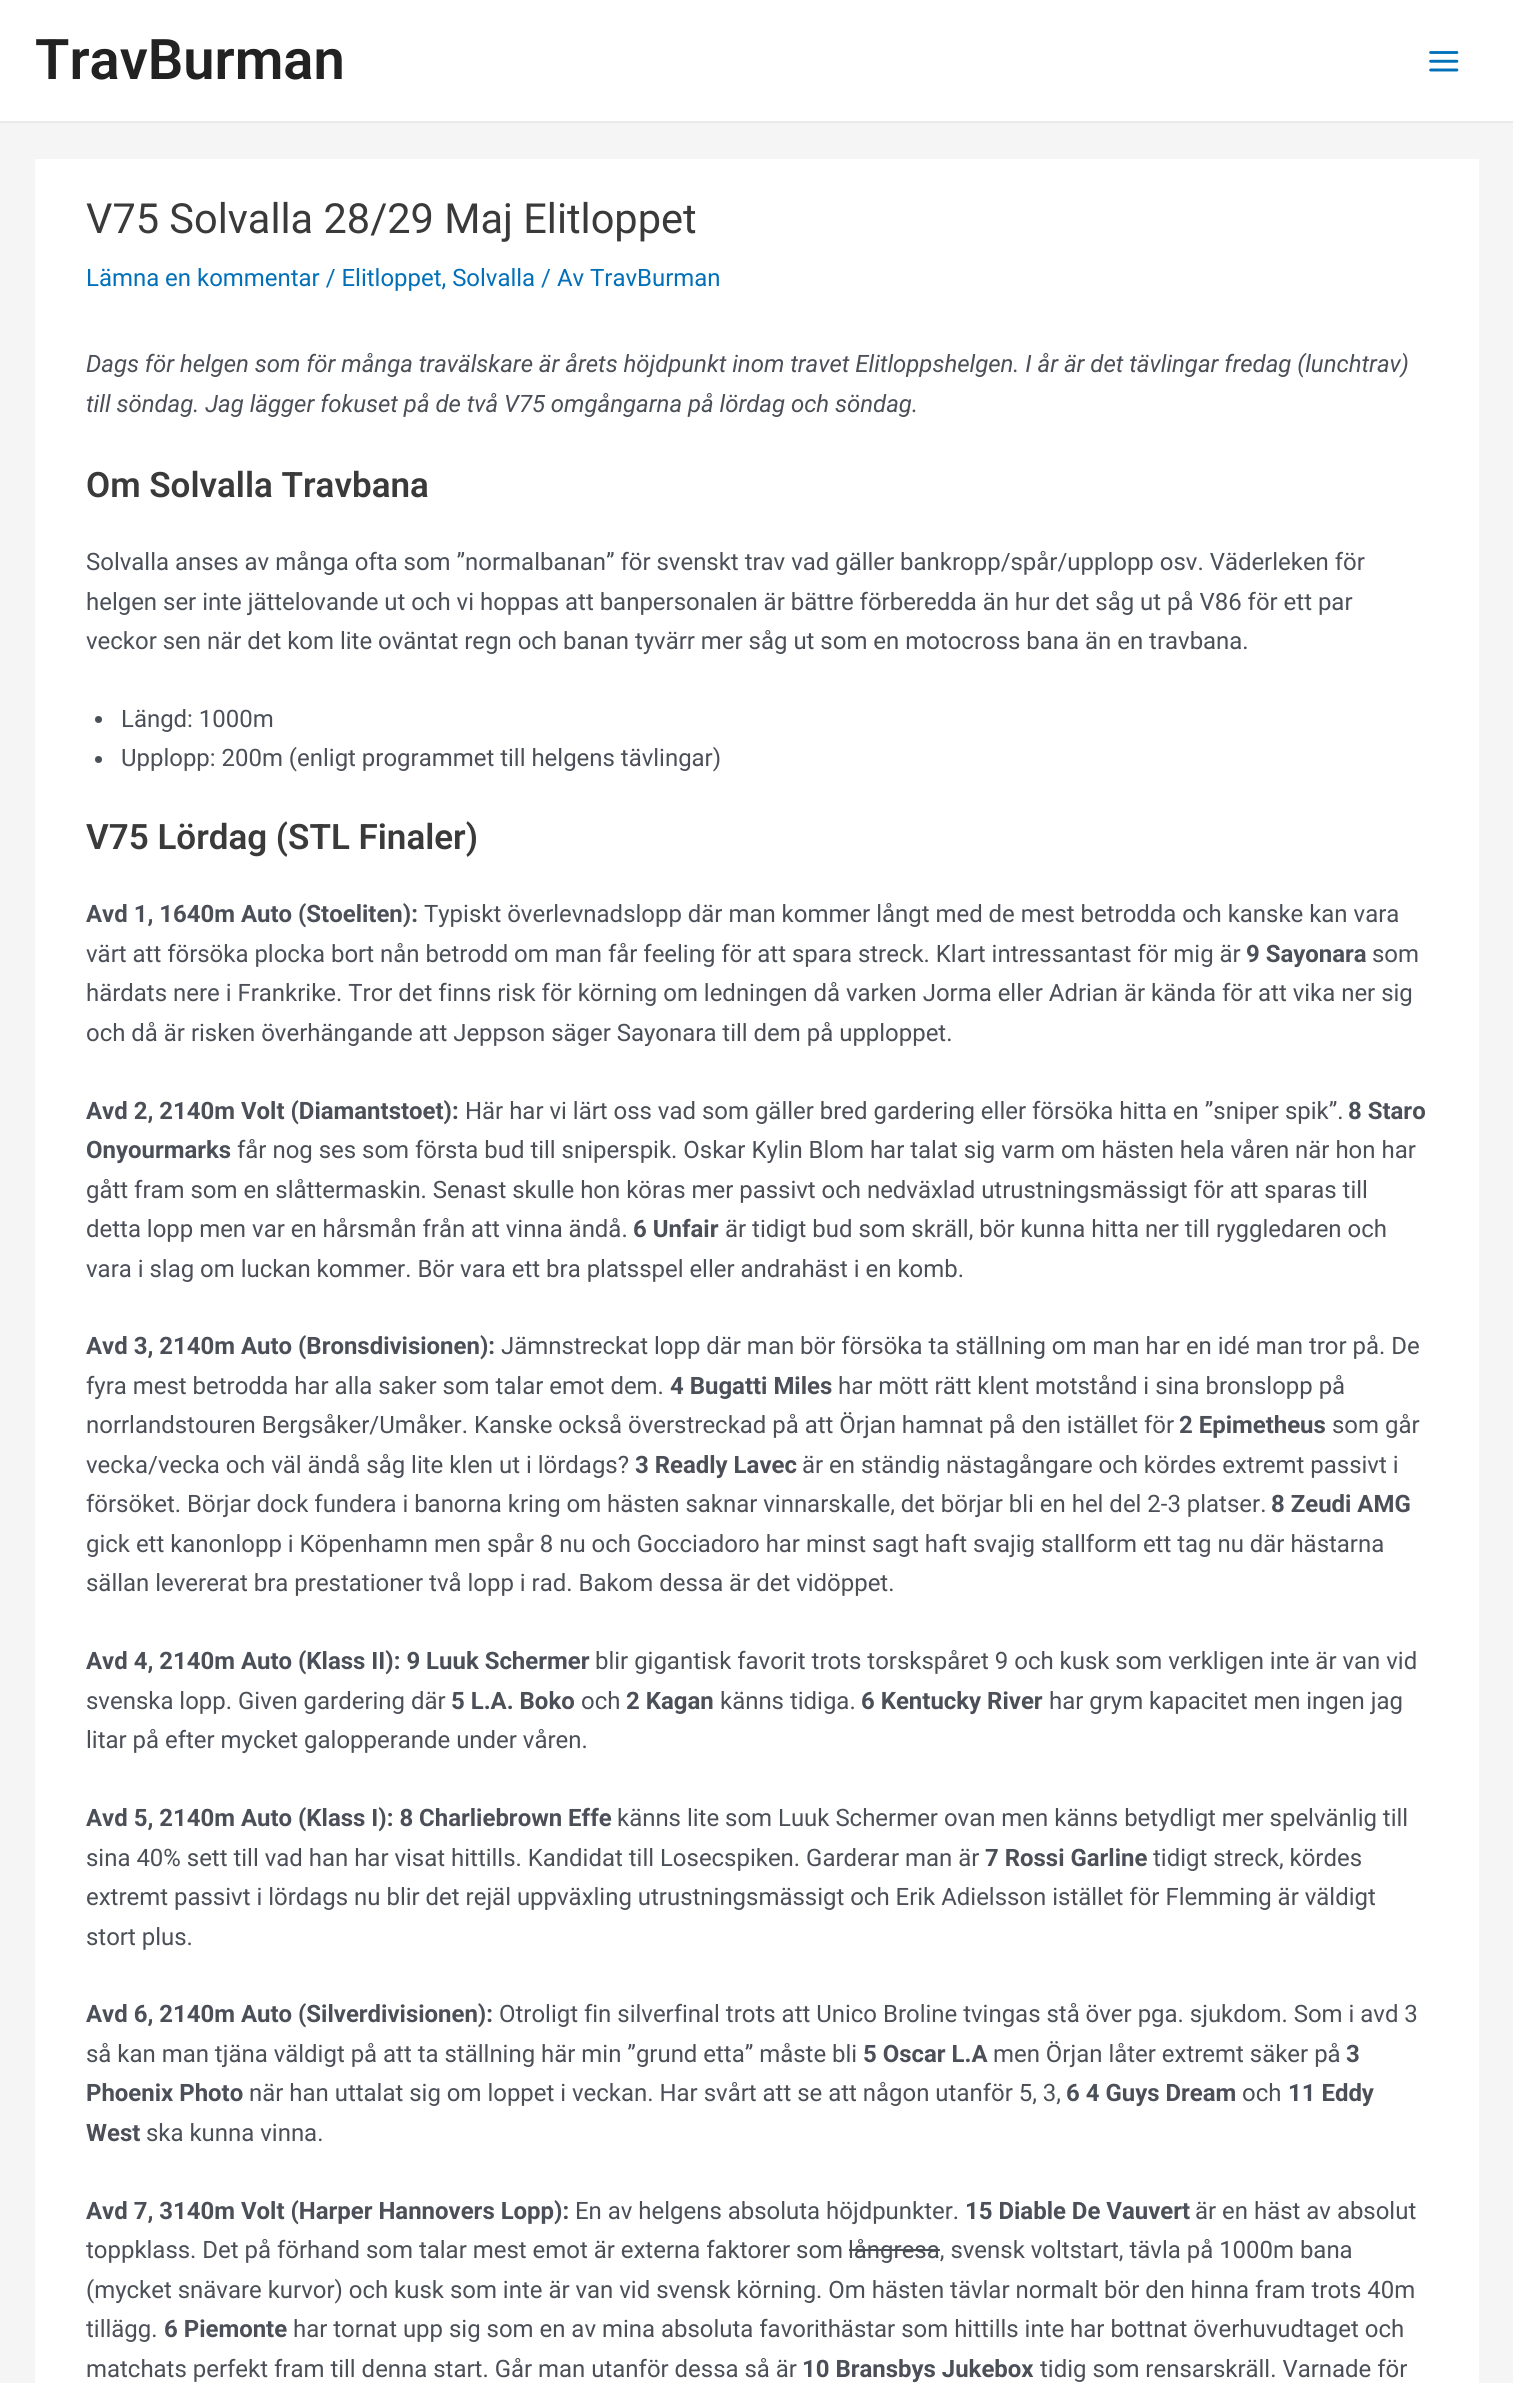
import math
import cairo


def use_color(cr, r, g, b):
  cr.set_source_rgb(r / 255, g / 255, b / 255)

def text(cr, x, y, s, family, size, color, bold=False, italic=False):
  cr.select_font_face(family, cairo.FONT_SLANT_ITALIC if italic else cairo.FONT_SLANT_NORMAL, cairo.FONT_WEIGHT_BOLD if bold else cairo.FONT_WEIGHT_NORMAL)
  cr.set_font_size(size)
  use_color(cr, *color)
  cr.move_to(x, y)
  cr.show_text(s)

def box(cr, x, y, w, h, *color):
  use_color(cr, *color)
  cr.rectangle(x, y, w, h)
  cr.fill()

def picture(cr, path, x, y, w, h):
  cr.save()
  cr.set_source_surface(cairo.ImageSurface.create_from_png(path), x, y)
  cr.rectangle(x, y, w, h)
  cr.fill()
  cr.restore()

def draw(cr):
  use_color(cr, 245, 245, 245)
  cr.paint()
  box(cr, 0, 0, 1513, 121, 255, 255, 255)
  box(cr, 0, 121, 1513, 2, 234, 234, 234)
  picture(cr, "img_01.png", 1429, 51, 30, 21)
  box(cr, 35, 159, 1444, 2224, 255, 255, 255)
  use_color(cr, 75, 79, 88)
  cr.arc(98.5, 719.5, 3.5, 0, 2 * math.pi)
  cr.fill()
  cr.arc(98.5, 759.5, 3.5, 0, 2 * math.pi)
  cr.fill()
  box(cr, 849, 2249, 91, 2, 75, 79, 88)
  text(cr, 35, 79, "TravBurman", "Roboto SemiBold", 56, (34, 34, 34))
  text(cr, 86, 233, "V75 Solvalla 28/29 Maj Elitloppet", "Roboto", 41.5, (58, 58, 58))
  text(cr, 86, 286, "Lämna en kommentar / Elitloppet, Solvalla / Av TravBurman", "Roboto", 23.95, (1, 112, 185))
  text(cr, 86, 372, "Dags för helgen som för många travälskare är årets höjdpunkt inom travet Elitloppshelgen. I år är det tävlingar fredag (lunchtrav)", "Roboto", 23.95, (75, 79, 88), italic=True)
  text(cr, 86, 412, "till söndag. Jag lägger fokuset på de två V75 omgångarna på lördag och söndag.", "Roboto", 23.95, (75, 79, 88), italic=True)
  text(cr, 86, 497, "Om Solvalla Travbana", "Roboto SemiBold", 35, (58, 58, 58))
  text(cr, 86, 570, "Solvalla anses av många ofta som ”normalbanan” för svenskt trav vad gäller bankropp/spår/upplopp osv. Väderleken för", "Roboto", 23.95, (75, 79, 88))
  text(cr, 86, 610, "helgen ser inte jättelovande ut och vi hoppas att banpersonalen är bättre förberedda än hur det såg ut på V86 för ett par", "Roboto", 23.95, (75, 79, 88))
  text(cr, 86, 649, "veckor sen när det kom lite oväntat regn och banan tyvärr mer såg ut som en motocross bana än en travbana.", "Roboto", 23.95, (75, 79, 88))
  text(cr, 121, 727, "Längd: 1000m", "Roboto", 23.95, (75, 79, 88))
  text(cr, 121, 766, "Upplopp: 200m (enligt programmet till helgens tävlingar)", "Roboto", 23.95, (75, 79, 88))
  text(cr, 86, 849, "V75 Lördag (STL Finaler)", "Roboto SemiBold", 35, (58, 58, 58))
  text(cr, 86, 922, "Avd 1, 1640m Auto (Stoeliten):", "Roboto", 23.95, (75, 79, 88), bold=True)
  text(cr, 424, 922, "Typiskt överlevnadslopp där man kommer långt med de mest betrodda och kanske kan vara", "Roboto", 23.95, (75, 79, 88))
  text(cr, 86, 962, "värt att försöka plocka bort nån betrodd om man får feeling för att spara streck. Klart intressantast för mig är", "Roboto", 23.95, (75, 79, 88))
  text(cr, 1246, 962, "9 Sayonara", "Roboto", 23.95, (75, 79, 88), bold=True)
  text(cr, 1372, 962, "som", "Roboto", 23.95, (75, 79, 88))
  text(cr, 86, 1001, "härdats nere i Frankrike. Tror det finns risk för körning om ledningen då varken Jorma eller Adrian är kända för att vika ner sig", "Roboto", 23.95, (75, 79, 88))
  text(cr, 86, 1041, "och då är risken överhängande att Jeppson säger Sayonara till dem på upploppet.", "Roboto", 23.95, (75, 79, 88))
  text(cr, 86, 1119, "Avd 2, 2140m Volt (Diamantstoet):", "Roboto", 23.95, (75, 79, 88), bold=True)
  text(cr, 465, 1119, "Här har vi lärt oss vad som gäller bred gardering eller försöka hitta en ”sniper spik”.", "Roboto", 23.95, (75, 79, 88))
  text(cr, 1348, 1119, "8 Staro", "Roboto", 23.95, (75, 79, 88), bold=True)
  text(cr, 86, 1158, "Onyourmarks", "Roboto", 23.95, (75, 79, 88), bold=True)
  text(cr, 237, 1158, "får nog ses som första bud till sniperspik. Oskar Kylin Blom har talat sig varm om hästen hela våren när hon har", "Roboto", 23.95, (75, 79, 88))
  text(cr, 86, 1198, "gått fram som en slåttermaskin. Senast skulle hon köras mer passivt och nedväxlad utrustningsmässigt för att sparas till", "Roboto", 23.95, (75, 79, 88))
  text(cr, 86, 1237, "detta lopp men var en hårsmån från att vinna ändå.", "Roboto", 23.95, (75, 79, 88))
  text(cr, 633, 1237, "6 Unfair", "Roboto", 23.95, (75, 79, 88), bold=True)
  text(cr, 725, 1237, "är tidigt bud som skräll, bör kunna hitta ner till ryggledaren och", "Roboto", 23.95, (75, 79, 88))
  text(cr, 86, 1277, "vara i slag om luckan kommer. Bör vara ett bra platsspel eller andrahäst i en komb.", "Roboto", 23.95, (75, 79, 88))
  text(cr, 86, 1354, "Avd 3, 2140m Auto (Bronsdivisionen):", "Roboto", 23.95, (75, 79, 88), bold=True)
  text(cr, 501, 1354, "Jämnstreckat lopp där man bör försöka ta ställning om man har en idé man tror på. De", "Roboto", 23.95, (75, 79, 88))
  text(cr, 86, 1394, "fyra mest betrodda har alla saker som talar emot dem.", "Roboto", 23.95, (75, 79, 88))
  text(cr, 670, 1394, "4 Bugatti Miles", "Roboto", 23.95, (75, 79, 88), bold=True)
  text(cr, 838, 1394, "har mött rätt klent motstånd i sina bronslopp på", "Roboto", 23.95, (75, 79, 88))
  text(cr, 86, 1433, "norrlandstouren Bergsåker/Umåker. Kanske också överstreckad på att Örjan hamnat på den istället för", "Roboto", 23.95, (75, 79, 88))
  text(cr, 1179, 1433, "2 Epimetheus", "Roboto", 23.95, (75, 79, 88), bold=True)
  text(cr, 1332, 1433, "som går", "Roboto", 23.95, (75, 79, 88))
  text(cr, 86, 1473, "vecka/vecka och väl ändå såg lite klen ut i lördags?", "Roboto", 23.95, (75, 79, 88))
  text(cr, 635, 1473, "3 Readly Lavec", "Roboto", 23.95, (75, 79, 88), bold=True)
  text(cr, 802, 1473, "är en ständig nästagångare och kördes extremt passivt i", "Roboto", 23.95, (75, 79, 88))
  text(cr, 86, 1512, "försöket. Börjar dock fundera i banorna kring om hästen saknar vinnarskalle, det börjar bli en hel del 2-3 platser.", "Roboto", 23.95, (75, 79, 88))
  text(cr, 1271, 1512, "8 Zeudi AMG", "Roboto", 23.95, (75, 79, 88), bold=True)
  text(cr, 86, 1552, "gick ett kanonlopp i Köpenhamn men spår 8 nu och Gocciadoro har minst sagt haft svajig stallform ett tag nu där hästarna", "Roboto", 23.95, (75, 79, 88))
  text(cr, 86, 1591, "sällan levererat bra prestationer två lopp i rad. Bakom dessa är det vidöppet.", "Roboto", 23.95, (75, 79, 88))
  text(cr, 86, 1669, "Avd 4, 2140m Auto (Klass II): 9 Luuk Schermer", "Roboto", 23.95, (75, 79, 88), bold=True)
  text(cr, 595, 1669, "blir gigantisk favorit trots torskspåret 9 och kusk som verkligen inte är van vid", "Roboto", 23.95, (75, 79, 88))
  text(cr, 86, 1709, "svenska lopp. Given gardering där", "Roboto", 23.95, (75, 79, 88))
  text(cr, 451, 1709, "5 L.A. Boko", "Roboto", 23.95, (75, 79, 88), bold=True)
  text(cr, 581, 1709, "och", "Roboto", 23.95, (75, 79, 88))
  text(cr, 626, 1709, "2 Kagan", "Roboto", 23.95, (75, 79, 88), bold=True)
  text(cr, 720, 1709, "känns tidiga.", "Roboto", 23.95, (75, 79, 88))
  text(cr, 861, 1709, "6 Kentucky River", "Roboto", 23.95, (75, 79, 88), bold=True)
  text(cr, 1049, 1709, "har grym kapacitet men ingen jag", "Roboto", 23.95, (75, 79, 88))
  text(cr, 86, 1748, "litar på efter mycket galopperande under våren.", "Roboto", 23.95, (75, 79, 88))
  text(cr, 86, 1826, "Avd 5, 2140m Auto (Klass I): 8 Charliebrown Effe", "Roboto", 23.95, (75, 79, 88), bold=True)
  text(cr, 617, 1826, "känns lite som Luuk Schermer ovan men känns betydligt mer spelvänlig till", "Roboto", 23.95, (75, 79, 88))
  text(cr, 86, 1866, "sina 40% sett till vad han har visat hittills. Kandidat till Losecspiken. Garderar man är", "Roboto", 23.95, (75, 79, 88))
  text(cr, 985, 1866, "7 Rossi Garline", "Roboto", 23.95, (75, 79, 88), bold=True)
  text(cr, 1153, 1866, "tidigt streck, kördes", "Roboto", 23.95, (75, 79, 88))
  text(cr, 86, 1905, "extremt passivt i lördags nu blir det rejäl uppväxling utrustningsmässigt och Erik Adielsson istället för Flemming är väldigt", "Roboto", 23.95, (75, 79, 88))
  text(cr, 86, 1945, "stort plus.", "Roboto", 23.95, (75, 79, 88))
  text(cr, 86, 2022, "Avd 6, 2140m Auto (Silverdivisionen):", "Roboto", 23.95, (75, 79, 88), bold=True)
  text(cr, 499, 2022, "Otroligt fin silverfinal trots att Unico Broline tvingas stå över pga. sjukdom. Som i avd 3", "Roboto", 23.95, (75, 79, 88))
  text(cr, 86, 2062, "så kan man tjäna väldigt på att ta ställning här min ”grund etta” måste bli", "Roboto", 23.95, (75, 79, 88))
  text(cr, 863, 2062, "5 Oscar L.A", "Roboto", 23.95, (75, 79, 88), bold=True)
  text(cr, 993, 2062, "men Örjan låter extremt säker på", "Roboto", 23.95, (75, 79, 88))
  text(cr, 1346, 2062, "3", "Roboto", 23.95, (75, 79, 88), bold=True)
  text(cr, 86, 2101, "Phoenix Photo", "Roboto", 23.95, (75, 79, 88), bold=True)
  text(cr, 249, 2101, "när han uttalat sig om loppet i veckan. Har svårt att se att någon utanför 5, 3,", "Roboto", 23.95, (75, 79, 88))
  text(cr, 1066, 2101, "6 4 Guys Dream", "Roboto", 23.95, (75, 79, 88), bold=True)
  text(cr, 1242, 2101, "och", "Roboto", 23.95, (75, 79, 88))
  text(cr, 1288, 2101, "11 Eddy", "Roboto", 23.95, (75, 79, 88), bold=True)
  text(cr, 86, 2141, "West", "Roboto", 23.95, (75, 79, 88), bold=True)
  text(cr, 146, 2141, "ska kunna vinna.", "Roboto", 23.95, (75, 79, 88))
  text(cr, 86, 2219, "Avd 7, 3140m Volt (Harper Hannovers Lopp):", "Roboto", 23.95, (75, 79, 88), bold=True)
  text(cr, 575, 2219, "En av helgens absoluta höjdpunkter.", "Roboto", 23.95, (75, 79, 88))
  text(cr, 965, 2219, "15 Diable De Vauvert", "Roboto", 23.95, (75, 79, 88), bold=True)
  text(cr, 1195, 2219, "är en häst av absolut", "Roboto", 23.95, (75, 79, 88))
  text(cr, 86, 2258, "toppklass. Det på förhand som talar mest emot är externa faktorer som", "Roboto", 23.95, (75, 79, 88))
  text(cr, 848, 2258, "långresa, svensk voltstart, tävla på 1000m bana", "Roboto", 23.95, (75, 79, 88))
  text(cr, 86, 2298, "(mycket snävare kurvor) och kusk som inte är van vid svensk körning. Om hästen tävlar normalt bör den hinna fram trots 40m", "Roboto", 23.95, (75, 79, 88))
  text(cr, 86, 2337, "tillägg.", "Roboto", 23.95, (75, 79, 88))
  text(cr, 164, 2337, "6 Piemonte", "Roboto", 23.95, (75, 79, 88), bold=True)
  text(cr, 293, 2337, "har tornat upp sig som en av mina absoluta favorithästar som hittills inte har bottnat överhuvudtaget och", "Roboto", 23.95, (75, 79, 88))
  text(cr, 86, 2377, "matchats perfekt fram till denna start. Går man utanför dessa så är", "Roboto", 23.95, (75, 79, 88))
  text(cr, 802, 2377, "10 Bransbys Jukebox", "Roboto", 23.95, (75, 79, 88), bold=True)
  text(cr, 1040, 2377, "tidig som rensarskräll. Varnade för", "Roboto", 23.95, (75, 79, 88))


surface = cairo.ImageSurface(cairo.FORMAT_RGB24, 1513, 2383)
cr = cairo.Context(surface)
options = cairo.FontOptions()
options.set_hint_metrics(cairo.HINT_METRICS_OFF)
options.set_hint_style(cairo.HINT_STYLE_NONE)
cr.set_font_options(options)
cr.set_miter_limit(4)
draw(cr)
surface.write_to_png("out.png")
